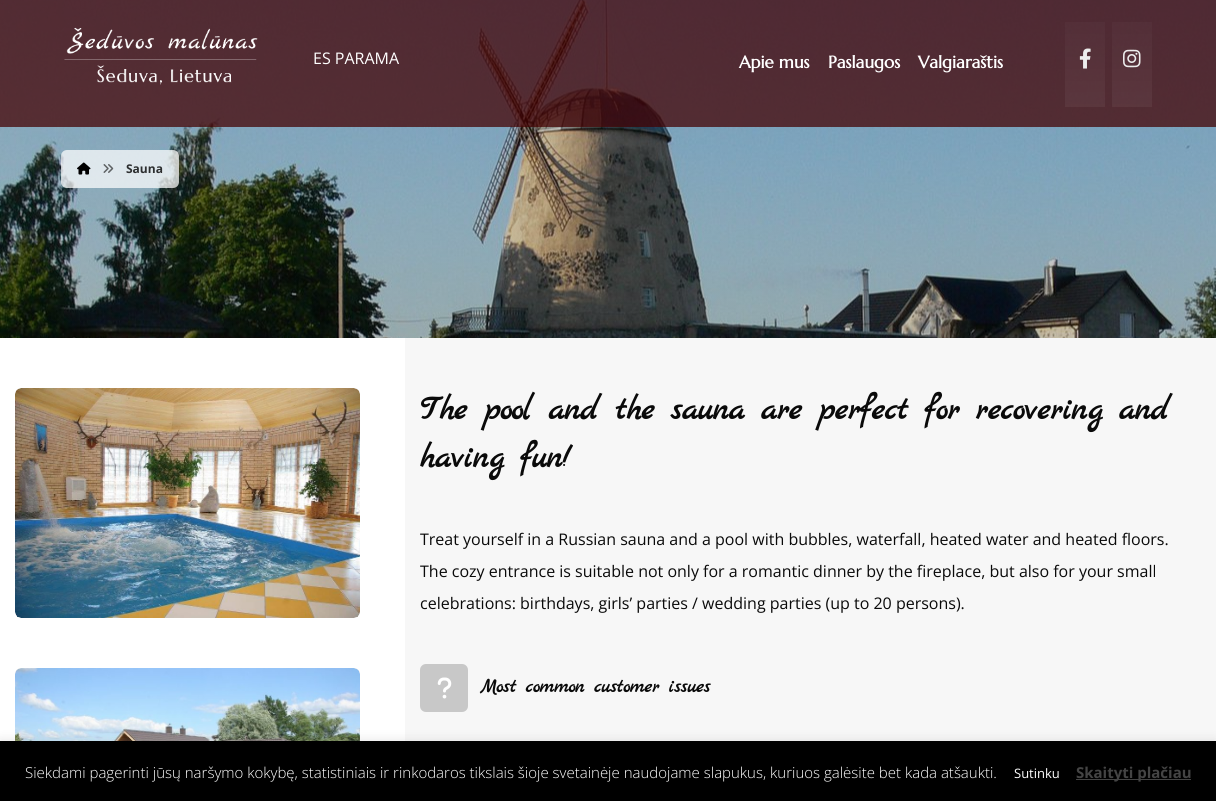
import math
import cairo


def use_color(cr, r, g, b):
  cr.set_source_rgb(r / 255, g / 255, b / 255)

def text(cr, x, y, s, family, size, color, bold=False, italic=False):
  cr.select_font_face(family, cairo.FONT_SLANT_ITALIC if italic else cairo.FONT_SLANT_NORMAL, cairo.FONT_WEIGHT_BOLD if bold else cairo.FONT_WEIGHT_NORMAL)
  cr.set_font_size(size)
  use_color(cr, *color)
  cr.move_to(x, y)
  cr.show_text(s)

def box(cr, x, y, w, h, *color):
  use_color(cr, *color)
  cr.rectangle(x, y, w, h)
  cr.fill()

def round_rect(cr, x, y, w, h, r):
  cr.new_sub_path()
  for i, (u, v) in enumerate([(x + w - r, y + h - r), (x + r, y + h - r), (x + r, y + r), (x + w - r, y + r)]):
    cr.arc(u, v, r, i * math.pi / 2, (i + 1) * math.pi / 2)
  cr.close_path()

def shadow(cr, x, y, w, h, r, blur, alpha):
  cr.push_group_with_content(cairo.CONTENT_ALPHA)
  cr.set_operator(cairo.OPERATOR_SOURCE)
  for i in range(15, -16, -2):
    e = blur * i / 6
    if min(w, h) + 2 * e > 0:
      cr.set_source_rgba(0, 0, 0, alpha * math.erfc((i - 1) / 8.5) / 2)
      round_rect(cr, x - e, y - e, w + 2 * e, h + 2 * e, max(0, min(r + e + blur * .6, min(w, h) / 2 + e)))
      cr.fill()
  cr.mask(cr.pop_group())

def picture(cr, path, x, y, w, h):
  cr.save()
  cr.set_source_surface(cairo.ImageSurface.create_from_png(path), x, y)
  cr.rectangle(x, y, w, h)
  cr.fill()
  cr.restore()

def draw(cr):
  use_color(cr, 255, 255, 255)
  cr.paint()
  picture(cr, "img_04.png", 0, 0, 1216, 338)
  cr.set_source_rgba(0.267, 0, 0, 0.73)
  cr.rectangle(0, 0, 1216, 127)
  cr.fill()
  picture(cr, "img_01.png", 64, 27, 194, 58)
  gradient = cairo.LinearGradient(1085, 107, 1085, -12)
  gradient.add_color_stop_rgba(0, 1, 1, 1, 0.05)
  gradient.add_color_stop_rgba(1, 1, 1, 1, 0.01)
  cr.set_source(gradient)
  cr.rectangle(1065, 22, 40, 85)
  cr.fill()
  picture(cr, "img_02.png", 1079, 48, 12, 21)
  gradient = cairo.LinearGradient(1132, 107, 1132, -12)
  gradient.add_color_stop_rgba(0, 1, 1, 1, 0.05)
  gradient.add_color_stop_rgba(1, 1, 1, 1, 0.01)
  cr.set_source(gradient)
  cr.rectangle(1112, 22, 40, 85)
  cr.fill()
  picture(cr, "img_03.png", 1123, 49, 18, 19)
  cr.set_source_rgba(1, 1, 1, 0.72)
  round_rect(cr, 61, 150, 118, 38, 6)
  cr.fill()
  picture(cr, "img_05.png", 77, 162, 14, 13)
  picture(cr, "img_06.png", 103, 164, 11, 9)
  use_color(cr, 238, 238, 238)
  round_rect(cr, 15, 388, 345, 230, 6)
  cr.fill()
  picture(cr, "img_07.png", 15, 388, 345, 230)
  use_color(cr, 237, 237, 237)
  round_rect(cr, 15, 668, 345, 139, 6)
  cr.fill()
  picture(cr, "img_08.png", 15, 668, 345, 73)
  box(cr, 405, 338, 811, 403, 247, 247, 247)
  use_color(cr, 200, 200, 200)
  round_rect(cr, 420, 664, 48, 48, 6)
  cr.fill()
  picture(cr, "img_09.png", 437, 677, 15, 22)
  use_color(cr, 172, 171, 171)
  shadow(cr, 0, 740, 1216, 60, 0, 5, 0.3)
  box(cr, 0, 741, 1216, 60, 0, 0, 0)
  box(cr, 1076, 779, 115, 1, 68, 68, 68)
  text(cr, 313, 64, "ES PARAMA", "Open Sans", 16, (255, 255, 255))
  text(cr, 739, 68, "Apie mus", "Marcellus", 17, (255, 255, 255), bold=True)
  text(cr, 828, 68, "Paslaugos", "Marcellus", 17, (255, 255, 255), bold=True)
  text(cr, 918, 68, "Valgiaraštis", "Marcellus", 17, (255, 255, 255), bold=True)
  text(cr, 126, 173, "Sauna", "Open Sans", 12, (44, 46, 47), bold=True)
  text(cr, 420, 419, "The pool and the sauna are perfect for recovering and", "Marck Script", 34, (10, 10, 10), bold=True)
  text(cr, 420, 467, "having fun!", "Marck Script", 34, (10, 10, 10), bold=True)
  text(cr, 420, 545, "Treat yourself in a Russian sauna and a pool with bubbles, waterfall, heated water and heated floors.", "Open Sans", 16, (10, 10, 10))
  text(cr, 420, 577, "The cozy entrance is suitable not only for a romantic dinner by the fireplace, but also for your small", "Open Sans", 16, (10, 10, 10))
  text(cr, 420, 609, "celebrations: birthdays, girls’ parties / wedding parties (up to 20 persons).", "Open Sans", 16, (10, 10, 10))
  text(cr, 480, 692, "Most common customer issues", "Marck Script", 20, (10, 10, 10), bold=True)
  text(cr, 25, 778, "Siekdami pagerinti jūsų naršymo kokybę, statistiniais ir rinkodaros tikslais šioje svetainėje naudojame slapukus, kuriuos galėsite bet kada atšaukti.", "Open Sans Light", 15, (255, 255, 255))
  text(cr, 1014, 778, "Sutinku", "Open Sans", 13, (255, 255, 255))
  text(cr, 1076, 778, "Skaityti plačiau", "Open Sans", 15, (68, 68, 68), bold=True)


surface = cairo.ImageSurface(cairo.FORMAT_RGB24, 1216, 801)
cr = cairo.Context(surface)
options = cairo.FontOptions()
options.set_hint_metrics(cairo.HINT_METRICS_OFF)
options.set_hint_style(cairo.HINT_STYLE_NONE)
cr.set_font_options(options)
cr.set_miter_limit(4)
draw(cr)
surface.write_to_png("out.png")
